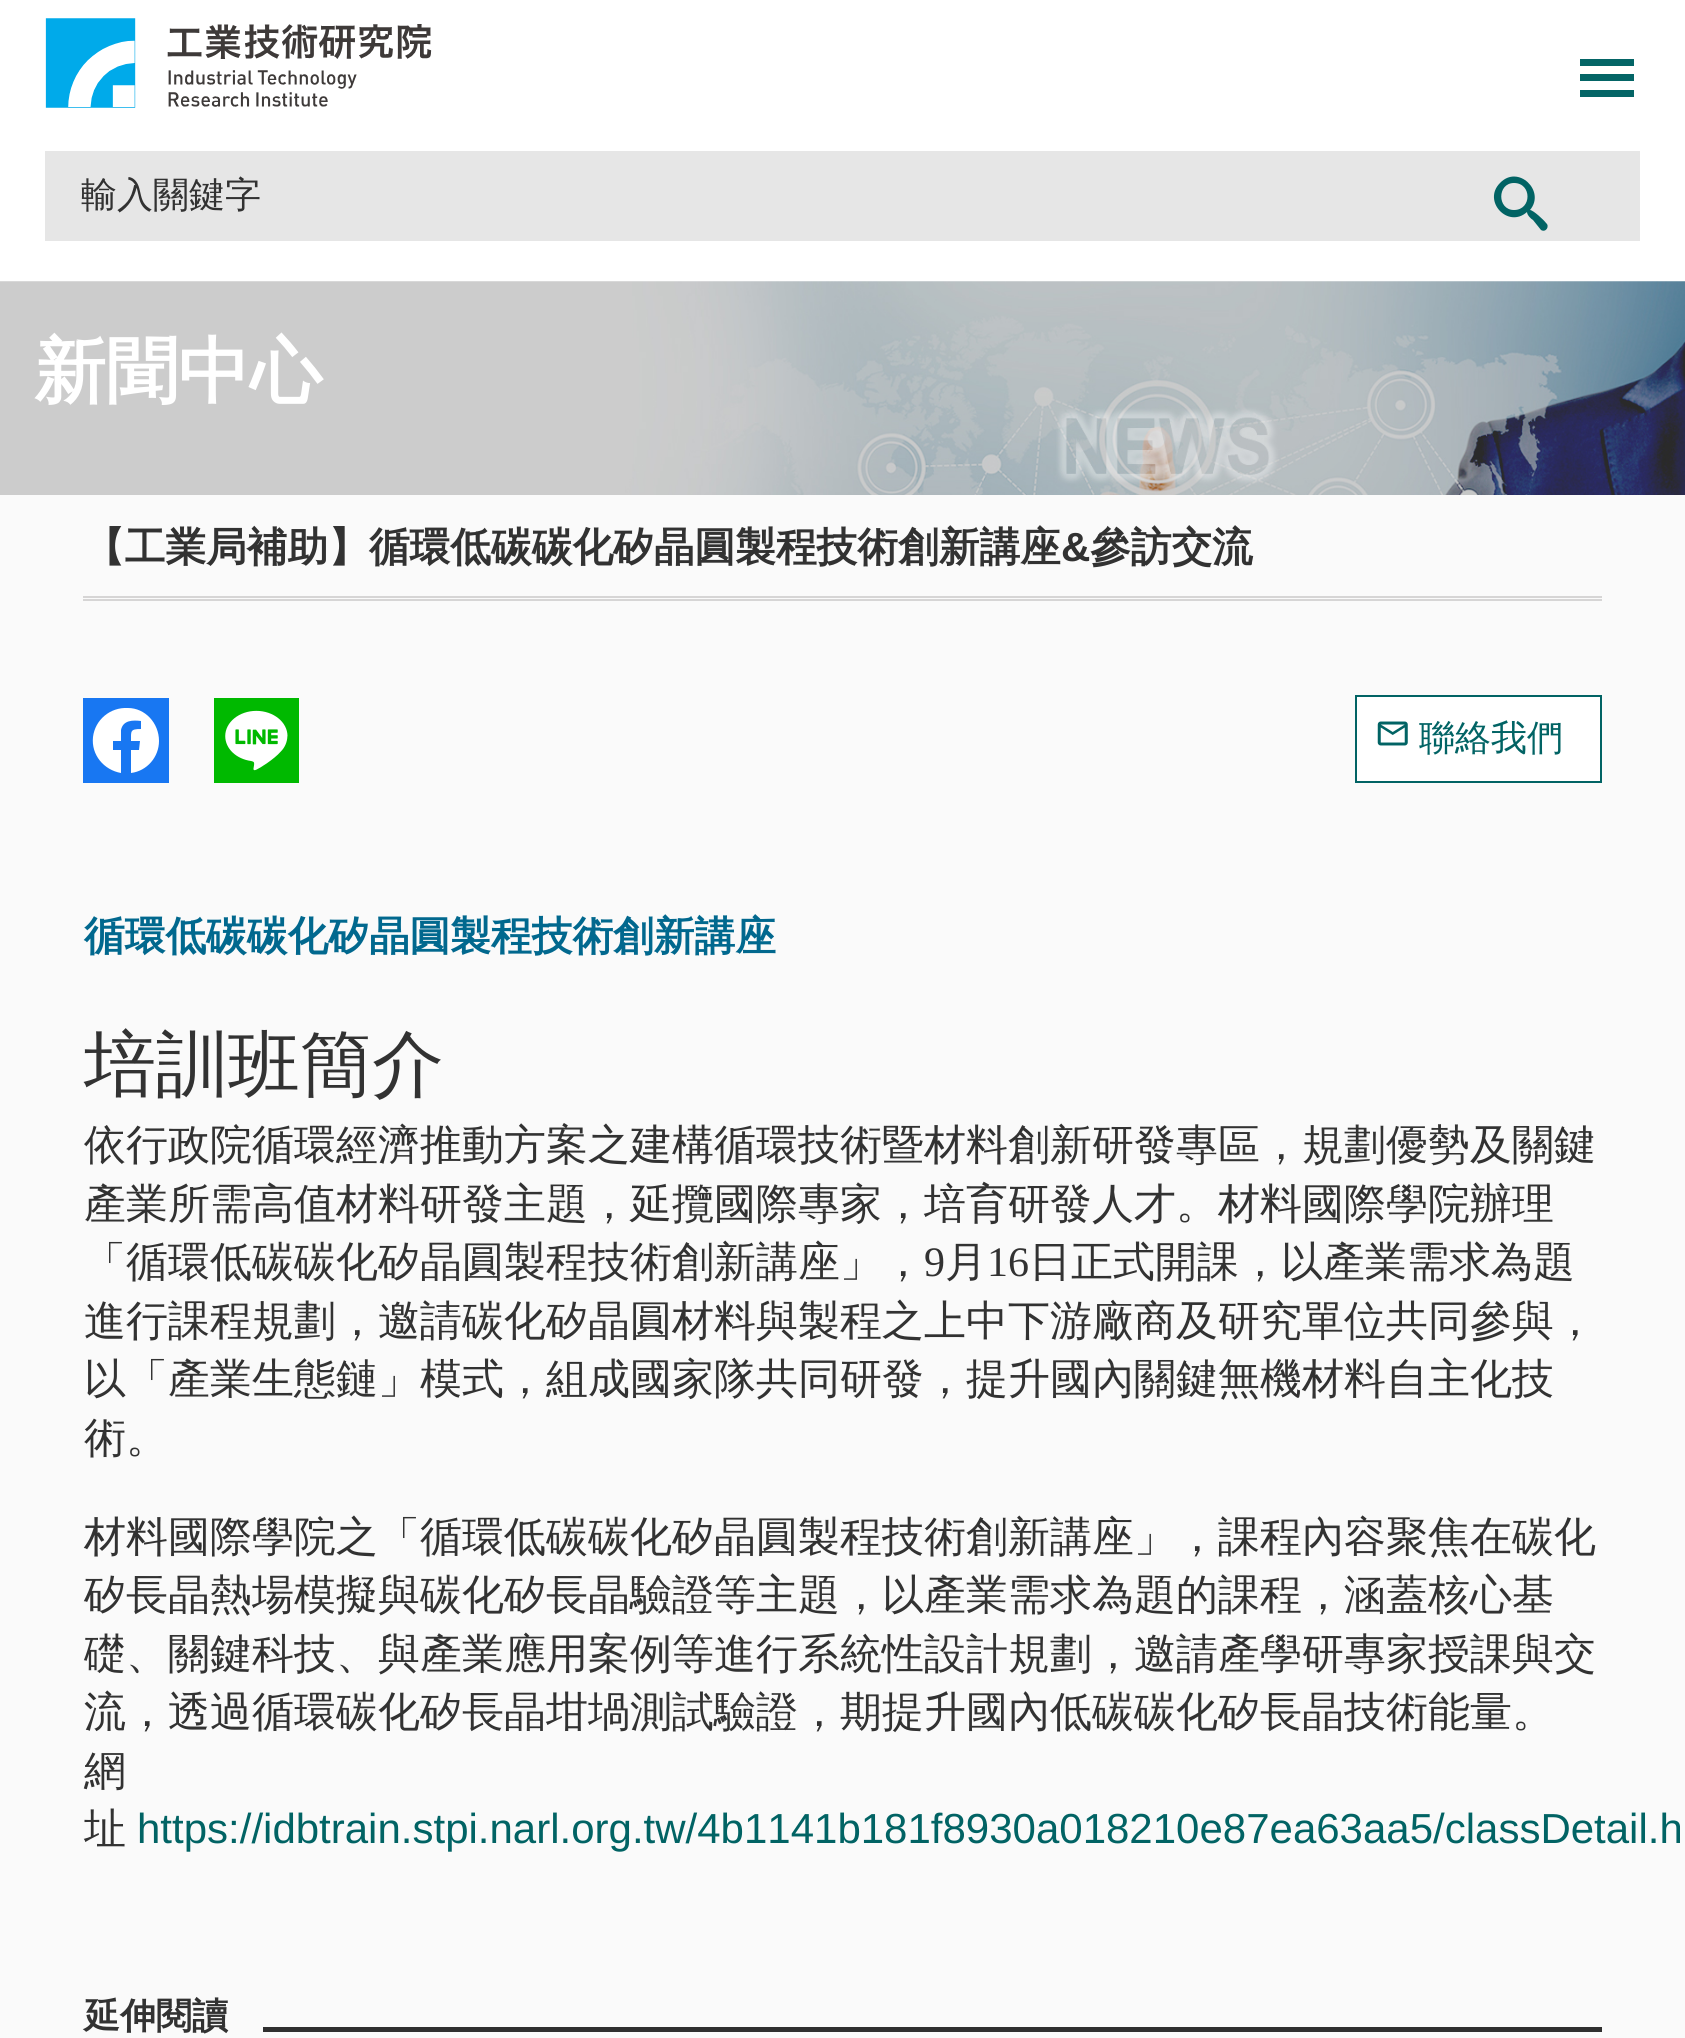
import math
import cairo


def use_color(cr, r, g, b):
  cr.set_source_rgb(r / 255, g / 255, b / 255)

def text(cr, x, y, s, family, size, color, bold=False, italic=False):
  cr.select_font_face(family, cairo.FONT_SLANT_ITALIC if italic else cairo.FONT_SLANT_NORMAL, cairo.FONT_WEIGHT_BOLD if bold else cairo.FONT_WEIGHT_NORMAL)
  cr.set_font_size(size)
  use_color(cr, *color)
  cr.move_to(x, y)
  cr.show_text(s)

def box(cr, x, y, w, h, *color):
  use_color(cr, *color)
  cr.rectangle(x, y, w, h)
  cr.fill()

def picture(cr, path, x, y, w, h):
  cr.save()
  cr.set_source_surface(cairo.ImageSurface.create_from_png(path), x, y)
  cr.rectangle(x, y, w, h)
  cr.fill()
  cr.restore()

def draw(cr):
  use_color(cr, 255, 255, 255)
  cr.paint()
  picture(cr, "img_01.png", 45, 18, 387, 90)
  box(cr, 1580, 74, 54, 7, 4, 101, 102)
  box(cr, 1580, 59, 54, 7, 4, 101, 102)
  box(cr, 1580, 90, 54, 7, 4, 101, 102)
  box(cr, 45, 151, 1595, 90, 230, 230, 230)
  use_color(cr, 1, 99, 100)
  cr.new_path()
  cr.move_to(1546, 223)
  cr.curve_to(1544, 220, 1533, 210, 1530, 210)
  cr.curve_to(1546, 191, 1518, 164, 1500, 183)
  cr.curve_to(1482, 201, 1508, 229, 1527, 212)
  cr.curve_to(1527, 215, 1531, 219, 1533, 220)
  cr.line_to(1541, 230)
  cr.curve_to(1546, 233, 1550, 226, 1546, 223)
  cr.close_path()
  cr.move_to(1514, 210)
  cr.curve_to(1497, 210, 1497, 183, 1514, 183)
  cr.curve_to(1532, 183, 1532, 210, 1514, 210)
  cr.close_path()
  cr.fill()
  picture(cr, "img_02.png", 0, 281, 1685, 214)
  box(cr, 0, 495, 1685, 1543, 250, 250, 250)
  box(cr, 83, 599, 1519, 2, 214, 213, 213)
  box(cr, 83, 596, 1519, 2, 214, 213, 213)
  box(cr, 83, 698, 86, 85, 24, 119, 242)
  use_color(cr, 255, 255, 255)
  cr.new_path()
  cr.move_to(159, 741)
  cr.curve_to(159, 723, 145, 708, 128, 708)
  cr.curve_to(110, 707, 95, 720, 93, 737)
  cr.curve_to(91, 755, 104, 770, 121, 773)
  cr.line_to(121, 750)
  cr.line_to(113, 750)
  cr.line_to(113, 741)
  cr.line_to(121, 741)
  cr.line_to(121, 730)
  cr.curve_to(123, 720, 133, 720, 141, 721)
  cr.line_to(141, 729)
  cr.curve_to(130, 729, 131, 731, 131, 741)
  cr.line_to(140, 741)
  cr.line_to(139, 750)
  cr.line_to(131, 750)
  cr.line_to(131, 773)
  cr.curve_to(147, 771, 159, 757, 159, 741)
  cr.close_path()
  cr.fill()
  picture(cr, "img_03.png", 214, 698, 85, 85)
  cr.rectangle(1356, 696, 245, 86)
  cr.fill_preserve()
  use_color(cr, 1, 99, 100)
  cr.stroke()
  picture(cr, "img_04.png", 1377, 721, 31, 25)
  box(cr, 263, 2027, 1339, 5, 47, 47, 47)
  text(cr, 81, 207, "輸入關鍵字", "WenQuanYi Zen Hei Medium", 36, (50, 50, 50))
  text(cr, 34, 396, "新聞中心", "WenQuanYi Zen Hei", 72, (255, 255, 255), bold=True)
  text(cr, 84, 561, "【工業局補助】循環低碳碳化矽晶圓製程技術創新講座", "WenQuanYi Zen Hei", 40.7, (50, 50, 50), bold=True)
  text(cr, 1061, 561, "&", "Liberation Sans", 40.7, (50, 50, 50), bold=True)
  text(cr, 1090, 561, "參訪交流", "WenQuanYi Zen Hei", 40.7, (50, 50, 50), bold=True)
  text(cr, 1419, 750, "聯絡我們", "WenQuanYi Zen Hei Medium", 36, (1, 99, 100))
  text(cr, 84, 950, "循環低碳碳化矽晶圓製程技術創新講座", "WenQuanYi Zen Hei", 40.7, (1, 104, 142), bold=True)
  text(cr, 84, 1089, "培訓班簡介", "WenQuanYi Zen Hei Medium", 72, (50, 50, 50))
  text(cr, 84, 1159, "依行政院循環經濟推動方案之建構循環技術暨材料創新研發專區，規劃優勢及關鍵", "WenQuanYi Zen Hei Medium", 42, (50, 50, 50))
  text(cr, 84, 1218, "產業所需高值材料研發主題，延攬國際專家，培育研發人才。材料國際學院辦理", "WenQuanYi Zen Hei Medium", 42, (50, 50, 50))
  text(cr, 84, 1276, "「循環低碳碳化矽晶圓製程技術創新講座」，", "WenQuanYi Zen Hei Medium", 42, (50, 50, 50))
  text(cr, 924, 1276, "9", "Liberation Serif", 42, (50, 50, 50))
  text(cr, 945, 1276, "月", "WenQuanYi Zen Hei Medium", 42, (50, 50, 50))
  text(cr, 987, 1276, "16", "Liberation Serif", 42, (50, 50, 50))
  text(cr, 1029, 1276, "日正式開課，以產業需求為題", "WenQuanYi Zen Hei Medium", 42, (50, 50, 50))
  text(cr, 84, 1335, "進行課程規劃，邀請碳化矽晶圓材料與製程之上中下游廠商及研究單位共同參與，", "WenQuanYi Zen Hei Medium", 42, (50, 50, 50))
  text(cr, 84, 1393, "以「產業生態鏈」模式，組成國家隊共同研發，提升國內關鍵無機材料自主化技", "WenQuanYi Zen Hei Medium", 42, (50, 50, 50))
  text(cr, 84, 1452, "術。", "WenQuanYi Zen Hei Medium", 42, (50, 50, 50))
  text(cr, 84, 1551, "材料國際學院之「循環低碳碳化矽晶圓製程技術創新講座」，課程內容聚焦在碳化", "WenQuanYi Zen Hei Medium", 42, (50, 50, 50))
  text(cr, 84, 1609, "矽長晶熱場模擬與碳化矽長晶驗證等主題，以產業需求為題的課程，涵蓋核心基", "WenQuanYi Zen Hei Medium", 42, (50, 50, 50))
  text(cr, 84, 1668, "礎、關鍵科技、與產業應用案例等進行系統性設計規劃，邀請產學研專家授課與交", "WenQuanYi Zen Hei Medium", 42, (50, 50, 50))
  text(cr, 84, 1726, "流，透過循環碳化矽長晶坩堝測試驗證，期提升國內低碳碳化矽長晶技術能量。", "WenQuanYi Zen Hei Medium", 42, (50, 50, 50))
  text(cr, 84, 1785, "網", "WenQuanYi Zen Hei Medium", 42, (50, 50, 50))
  text(cr, 84, 1843, "址", "WenQuanYi Zen Hei Medium", 42, (50, 50, 50))
  text(cr, 137, 1843, "https://idbtrain.stpi.narl.org.tw/4b1141b181f8930a018210e87ea63aa5/classDetail.h", "Liberation Sans", 42, (1, 99, 100))
  text(cr, 84, 2028, "延伸閱讀", "WenQuanYi Zen Hei", 36, (50, 50, 50), bold=True)


surface = cairo.ImageSurface(cairo.FORMAT_RGB24, 1685, 2038)
cr = cairo.Context(surface)
options = cairo.FontOptions()
options.set_hint_metrics(cairo.HINT_METRICS_OFF)
options.set_hint_style(cairo.HINT_STYLE_NONE)
cr.set_font_options(options)
cr.set_miter_limit(4)
draw(cr)
surface.write_to_png("out.png")
